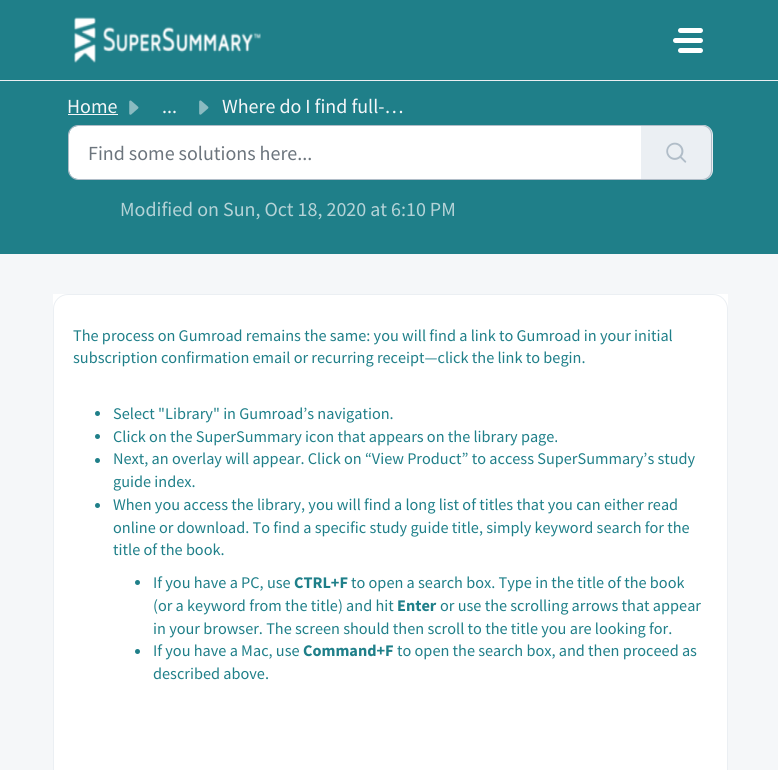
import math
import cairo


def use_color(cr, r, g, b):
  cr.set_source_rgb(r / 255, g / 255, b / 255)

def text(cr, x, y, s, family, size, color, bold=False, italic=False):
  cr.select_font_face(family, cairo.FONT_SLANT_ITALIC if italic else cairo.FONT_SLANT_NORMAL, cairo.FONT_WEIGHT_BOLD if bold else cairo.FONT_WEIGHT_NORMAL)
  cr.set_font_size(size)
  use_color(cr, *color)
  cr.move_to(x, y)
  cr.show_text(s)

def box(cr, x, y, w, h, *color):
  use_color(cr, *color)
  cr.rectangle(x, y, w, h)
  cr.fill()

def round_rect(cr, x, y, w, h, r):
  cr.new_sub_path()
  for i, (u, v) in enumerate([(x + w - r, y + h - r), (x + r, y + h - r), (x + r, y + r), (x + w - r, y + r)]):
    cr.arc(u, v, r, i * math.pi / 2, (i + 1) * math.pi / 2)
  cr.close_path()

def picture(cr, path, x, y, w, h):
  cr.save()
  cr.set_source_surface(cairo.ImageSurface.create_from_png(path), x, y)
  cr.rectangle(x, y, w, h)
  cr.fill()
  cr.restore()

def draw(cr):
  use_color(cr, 245, 247, 249)
  cr.paint()
  box(cr, 0, 0, 778, 80, 31, 127, 137)
  box(cr, 0, 80, 778, 1, 235, 239, 243)
  picture(cr, "img_01.png", 74, 17, 187, 46)
  use_color(cr, 255, 255, 255)
  round_rect(cr, 678, 28, 25, 5, 2.5)
  cr.fill()
  round_rect(cr, 673, 38, 30, 5, 2.5)
  cr.fill()
  round_rect(cr, 678, 48, 25, 5, 2.5)
  cr.fill()
  box(cr, 0, 81, 778, 173, 31, 127, 137)
  box(cr, 68, 114, 50, 1, 245, 247, 249)
  picture(cr, "img_02.png", 129, 100, 10, 15)
  picture(cr, "img_03.png", 199, 100, 10, 15)
  use_color(cr, 255, 255, 255)
  cr.new_path()
  cr.move_to(78, 126)
  cr.line_to(641, 126)
  cr.line_to(641, 179)
  cr.line_to(78, 179)
  cr.curve_to(73, 179, 69, 175, 69, 170)
  cr.line_to(69, 135)
  cr.curve_to(69, 130, 73, 126, 78, 126)
  cr.close_path()
  cr.fill()
  cr.new_path()
  cr.move_to(78, 125.5)
  cr.line_to(642.5, 125.5)
  cr.line_to(642.5, 179.5)
  cr.line_to(78, 179.5)
  cr.curve_to(73, 179.5, 68.5, 175, 68.5, 170)
  cr.line_to(68.5, 135)
  cr.curve_to(68.5, 130, 73, 125.5, 78, 125.5)
  cr.close_path()
  use_color(cr, 177, 189, 200)
  cr.set_line_width(1)
  cr.stroke()
  use_color(cr, 235, 239, 243)
  cr.new_path()
  cr.move_to(641, 125)
  cr.line_to(703, 125)
  cr.curve_to(708.5, 125, 713, 129.5, 713, 135)
  cr.line_to(713, 170)
  cr.curve_to(713, 175.5, 708.5, 180, 703, 180)
  cr.line_to(641, 180)
  cr.close_path()
  cr.fill()
  use_color(cr, 177, 189, 200)
  cr.set_fill_rule(cairo.FILL_RULE_EVEN_ODD)
  cr.new_path()
  cr.move_to(641, 125)
  cr.line_to(702, 125)
  cr.curve_to(708, 125, 712, 129, 712, 135)
  cr.line_to(712, 170)
  cr.curve_to(712, 176, 708, 180, 702, 180)
  cr.line_to(641, 180)
  cr.close_path()
  cr.move_to(641, 126)
  cr.line_to(702, 126)
  cr.curve_to(707, 126, 711, 130, 711, 135)
  cr.line_to(711, 170)
  cr.curve_to(711, 175, 707, 179, 702, 179)
  cr.line_to(641, 179)
  cr.close_path()
  cr.fill()
  picture(cr, "img_04.png", 666, 142, 21, 21)
  box(cr, 53, 294, 675, 476, 255, 255, 255)
  round_rect(cr, 53.5, 294.5, 674, 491, 14.5)
  use_color(cr, 235, 239, 243)
  cr.stroke()
  use_color(cr, 31, 127, 137)
  cr.arc(97.5, 413.5, 2.5, 0, 2 * math.pi)
  cr.fill()
  cr.arc(97.5, 436.5, 2.5, 0, 2 * math.pi)
  cr.fill()
  cr.arc(97.5, 460.5, 2.5, 0, 2 * math.pi)
  cr.fill()
  cr.arc(97.5, 505.5, 2.5, 0, 2 * math.pi)
  cr.fill()
  cr.arc(137.5, 582.5, 2.5, 0, 2 * math.pi)
  cr.fill()
  cr.arc(137.5, 651.5, 2.5, 0, 2 * math.pi)
  cr.fill()
  text(cr, 67, 113, "Home", "Source Sans Pro", 20, (245, 247, 249))
  text(cr, 162, 113, "...", "Source Sans Pro", 20, (245, 247, 249))
  text(cr, 222, 113, "Where do I find full-…", "Source Sans Pro", 20, (245, 247, 249))
  text(cr, 88, 160, "Find some solutions here...", "Source Sans Pro", 20, (108, 117, 125))
  text(cr, 120, 216, "Modified on Sun, Oct 18, 2020 at 6:10 PM", "Source Sans Pro", 20, (181, 211, 215))
  text(cr, 73, 341, "The process on Gumroad remains the same: you will find a link to Gumroad in your initial", "Source Sans Pro", 16.25, (31, 127, 137))
  text(cr, 73, 363, "subscription confirmation email or recurring receipt—click the link to begin.", "Source Sans Pro", 16.25, (31, 127, 137))
  text(cr, 113, 419, "Select \"Library\" in Gumroad’s navigation.", "Source Sans Pro", 16.25, (31, 127, 137))
  text(cr, 113, 442, "Click on the SuperSummary icon that appears on the library page.", "Source Sans Pro", 16.25, (31, 127, 137))
  text(cr, 113, 464, "Next, an overlay will appear. Click on “View Product” to access SuperSummary’s study", "Source Sans Pro", 16.25, (31, 127, 137))
  text(cr, 113, 487, "guide index.", "Source Sans Pro", 16.25, (31, 127, 137))
  text(cr, 113, 510, "When you access the library, you will find a long list of titles that you can either read", "Source Sans Pro", 16.25, (31, 127, 137))
  text(cr, 113, 533, "online or download. To find a specific study guide title, simply keyword search for the", "Source Sans Pro", 16.25, (31, 127, 137))
  text(cr, 113, 555, "title of the book.", "Source Sans Pro", 16.25, (31, 127, 137))
  text(cr, 153, 588, "If you have a PC, use", "Source Sans Pro", 16.25, (31, 127, 137))
  text(cr, 294, 588, "CTRL+F", "Source Sans Pro", 16.25, (31, 127, 137), bold=True)
  text(cr, 351, 588, "to open a search box. Type in the title of the book", "Source Sans Pro", 16.25, (31, 127, 137))
  text(cr, 153, 611, "(or a keyword from the title) and hit", "Source Sans Pro", 16.25, (31, 127, 137))
  text(cr, 397, 611, "Enter", "Source Sans Pro", 16.25, (31, 127, 137), bold=True)
  text(cr, 440, 611, "or use the scrolling arrows that appear", "Source Sans Pro", 16.25, (31, 127, 137))
  text(cr, 153, 634, "in your browser. The screen should then scroll to the title you are looking for.", "Source Sans Pro", 16.25, (31, 127, 137))
  text(cr, 153, 656, "If you have a Mac, use", "Source Sans Pro", 16.25, (31, 127, 137))
  text(cr, 303, 656, "Command+F", "Source Sans Pro", 16.25, (31, 127, 137), bold=True)
  text(cr, 397, 656, "to open the search box, and then proceed as", "Source Sans Pro", 16.25, (31, 127, 137))
  text(cr, 153, 679, "described above.", "Source Sans Pro", 16.25, (31, 127, 137))


surface = cairo.ImageSurface(cairo.FORMAT_RGB24, 778, 770)
cr = cairo.Context(surface)
options = cairo.FontOptions()
options.set_hint_metrics(cairo.HINT_METRICS_OFF)
options.set_hint_style(cairo.HINT_STYLE_NONE)
cr.set_font_options(options)
cr.set_miter_limit(4)
draw(cr)
surface.write_to_png("out.png")
